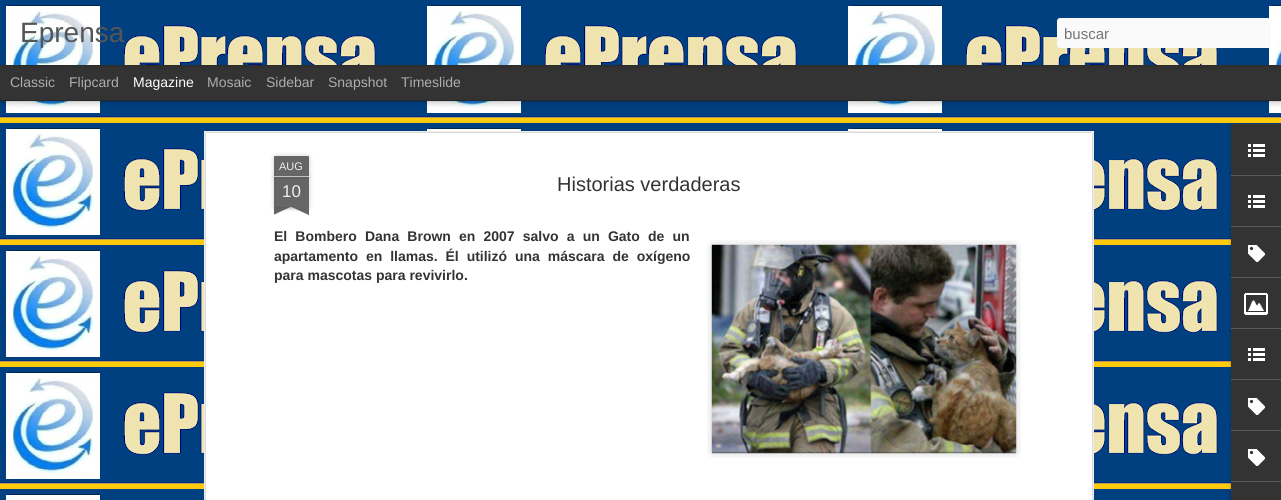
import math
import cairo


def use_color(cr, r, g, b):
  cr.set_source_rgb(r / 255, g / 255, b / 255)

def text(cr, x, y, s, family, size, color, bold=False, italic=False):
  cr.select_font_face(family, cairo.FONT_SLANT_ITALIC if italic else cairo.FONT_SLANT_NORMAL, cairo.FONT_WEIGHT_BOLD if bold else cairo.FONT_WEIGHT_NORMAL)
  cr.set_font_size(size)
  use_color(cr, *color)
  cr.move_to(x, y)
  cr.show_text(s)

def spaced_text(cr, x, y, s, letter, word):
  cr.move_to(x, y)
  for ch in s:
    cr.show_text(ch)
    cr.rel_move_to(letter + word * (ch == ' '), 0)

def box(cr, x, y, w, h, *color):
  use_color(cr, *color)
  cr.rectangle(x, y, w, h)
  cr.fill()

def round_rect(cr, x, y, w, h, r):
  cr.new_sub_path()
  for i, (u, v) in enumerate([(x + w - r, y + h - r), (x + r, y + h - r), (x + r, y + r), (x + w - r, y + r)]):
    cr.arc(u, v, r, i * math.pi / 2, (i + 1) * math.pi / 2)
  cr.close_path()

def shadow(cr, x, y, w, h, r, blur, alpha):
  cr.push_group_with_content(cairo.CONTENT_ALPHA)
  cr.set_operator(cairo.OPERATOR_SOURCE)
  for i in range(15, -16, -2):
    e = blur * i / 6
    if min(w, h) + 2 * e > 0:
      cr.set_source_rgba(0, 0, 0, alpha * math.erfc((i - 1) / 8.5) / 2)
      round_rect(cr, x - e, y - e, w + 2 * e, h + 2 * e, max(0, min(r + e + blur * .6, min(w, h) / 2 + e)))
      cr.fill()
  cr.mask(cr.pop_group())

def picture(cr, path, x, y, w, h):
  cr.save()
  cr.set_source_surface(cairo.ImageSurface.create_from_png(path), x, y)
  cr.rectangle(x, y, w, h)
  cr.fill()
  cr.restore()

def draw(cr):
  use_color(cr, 51, 51, 51)
  cr.paint()
  picture(cr, "img_02.png", 0, 101, 1281, 399)
  use_color(cr, 0, 0, 0)
  shadow(cr, 0, 65, 1281, 35, 0, 4, 0.5)
  box(cr, 0, 65, 1281, 35, 51, 51, 51)
  use_color(cr, 0, 0, 0)
  shadow(cr, 0, 0, 1281, 65, 0, 2.5, 0.3)
  picture(cr, "img_01.png", 0, 0, 1281, 65)
  use_color(cr, 250, 250, 250)
  round_rect(cr, 1057, 18, 214, 30, 3)
  cr.fill()
  box(cr, 204, 131, 890, 369, 255, 255, 255)
  picture(cr, "img_03.png", 204, 131, 890, 369)
  use_color(cr, 0, 0, 0)
  shadow(cr, 274, 177, 35, 30, 0, 2.5, 0.2)
  box(cr, 274, 177, 35, 30, 102, 102, 102)
  use_color(cr, 0, 0, 0)
  shadow(cr, 274, 156, 35, 21, 1, 2.5, 0.2)
  use_color(cr, 102, 102, 102)
  cr.new_path()
  cr.move_to(275, 156)
  cr.line_to(308, 156)
  cr.curve_to(308.5, 156, 309, 156.5, 309, 157)
  cr.line_to(309, 177)
  cr.line_to(274, 177)
  cr.line_to(274, 157)
  cr.curve_to(274, 156.5, 274.5, 156, 275, 156)
  cr.close_path()
  cr.fill()
  box(cr, 274, 176, 35, 1, 194, 194, 194)
  cr.save()
  cr.rectangle(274, 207, 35, 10)
  cr.clip()
  use_color(cr, 0, 0, 0)
  shadow(cr, 265, 197, 50, 10, 0, 2.5, 0.2)
  cr.restore()
  cr.save()
  cr.rectangle(274, 207, 35, 10)
  cr.clip()
  use_color(cr, 102, 102, 102)
  cr.new_path()
  cr.move_to(265, 208)
  cr.line_to(310, 187)
  cr.line_to(314, 196)
  cr.line_to(269, 217)
  cr.close_path()
  cr.fill()
  cr.restore()
  cr.save()
  cr.rectangle(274, 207, 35, 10)
  cr.clip()
  use_color(cr, 0, 0, 0)
  shadow(cr, 268, 197, 50, 10, 0, 2.5, 0.2)
  cr.restore()
  cr.save()
  cr.rectangle(274, 207, 35, 10)
  cr.clip()
  use_color(cr, 102, 102, 102)
  cr.new_path()
  cr.move_to(272, 187)
  cr.line_to(317, 208)
  cr.line_to(313, 217)
  cr.line_to(268, 196)
  cr.close_path()
  cr.fill()
  cr.restore()
  picture(cr, "img_04.png", 707, 240, 314, 218)
  picture(cr, "img_05.png", 711, 244, 306, 210)
  use_color(cr, 0, 0, 0)
  shadow(cr, 1231, 125, 50, 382, 2, 1.5, 0.3)
  use_color(cr, 51, 51, 51)
  cr.new_path()
  cr.move_to(1233, 124)
  cr.line_to(1281, 124)
  cr.line_to(1281, 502)
  cr.line_to(1233, 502)
  cr.curve_to(1232, 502, 1231, 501, 1231, 500)
  cr.line_to(1231, 126)
  cr.curve_to(1231, 125, 1232, 124, 1233, 124)
  cr.close_path()
  cr.fill()
  cr.new_path()
  cr.move_to(1233, 124)
  cr.line_to(1281, 124)
  cr.line_to(1281, 175)
  cr.line_to(1231, 175)
  cr.line_to(1231, 126)
  cr.curve_to(1231, 125, 1232, 124, 1233, 124)
  cr.close_path()
  cr.fill()
  picture(cr, "img_06.png", 1248, 144, 17, 13)
  box(cr, 1231, 175, 50, 1, 88, 88, 88)
  picture(cr, "img_06.png", 1248, 195, 17, 13)
  box(cr, 1231, 226, 50, 1, 88, 88, 88)
  picture(cr, "img_07.png", 1248, 245, 17, 17)
  box(cr, 1231, 277, 50, 1, 88, 88, 88)
  picture(cr, "img_08.png", 1244, 293, 24, 22)
  box(cr, 1231, 328, 50, 1, 88, 88, 88)
  picture(cr, "img_06.png", 1248, 348, 17, 13)
  box(cr, 1231, 379, 50, 1, 88, 88, 88)
  picture(cr, "img_07.png", 1248, 398, 17, 17)
  box(cr, 1231, 430, 50, 1, 88, 88, 88)
  picture(cr, "img_07.png", 1248, 449, 17, 17)
  box(cr, 1231, 481, 50, 1, 88, 88, 88)
  text(cr, 20, 42, "Eprensa", "Liberation Sans", 28, (85, 85, 85))
  text(cr, 1064, 39, "buscar", "Liberation Sans", 15, (117, 117, 117))
  text(cr, 10, 87, "Classic", "Liberation Sans", 14, (173, 173, 173))
  text(cr, 69, 87, "Flipcard", "Liberation Sans", 14, (173, 173, 173))
  text(cr, 133, 87, "Magazine", "Liberation Sans", 14, (255, 255, 255))
  text(cr, 207, 87, "Mosaic", "Liberation Sans", 14, (173, 173, 173))
  text(cr, 266, 87, "Sidebar", "Liberation Sans", 14, (173, 173, 173))
  text(cr, 328, 87, "Snapshot", "Liberation Sans", 14, (173, 173, 173))
  text(cr, 401, 87, "Timeslide", "Liberation Sans", 14, (173, 173, 173))
  text(cr, 279, 170, "AUG", "Liberation Sans", 11, (238, 238, 238))
  text(cr, 282, 197, "10", "Liberation Sans", 17, (238, 238, 238))
  text(cr, 557, 191, "Historias verdaderas", "Liberation Sans", 20, (51, 51, 51))
  cr.select_font_face("Liberation Sans", cairo.FONT_SLANT_NORMAL, cairo.FONT_WEIGHT_BOLD)
  cr.set_font_size(14)
  spaced_text(cr, 274, 241, "El Bombero Dana Brown en 2007 salvo a un Gato de un", 0, 4.25)
  spaced_text(cr, 274, 261, "apartamento en llamas. Él utilizó una máscara de oxígeno", 0, 4)
  text(cr, 274, 280, "para mascotas para revivirlo.", "Liberation Sans", 14, (51, 51, 51), bold=True)


surface = cairo.ImageSurface(cairo.FORMAT_RGB24, 1281, 500)
cr = cairo.Context(surface)
options = cairo.FontOptions()
options.set_hint_metrics(cairo.HINT_METRICS_OFF)
options.set_hint_style(cairo.HINT_STYLE_NONE)
cr.set_font_options(options)
cr.set_miter_limit(4)
draw(cr)
surface.write_to_png("out.png")
